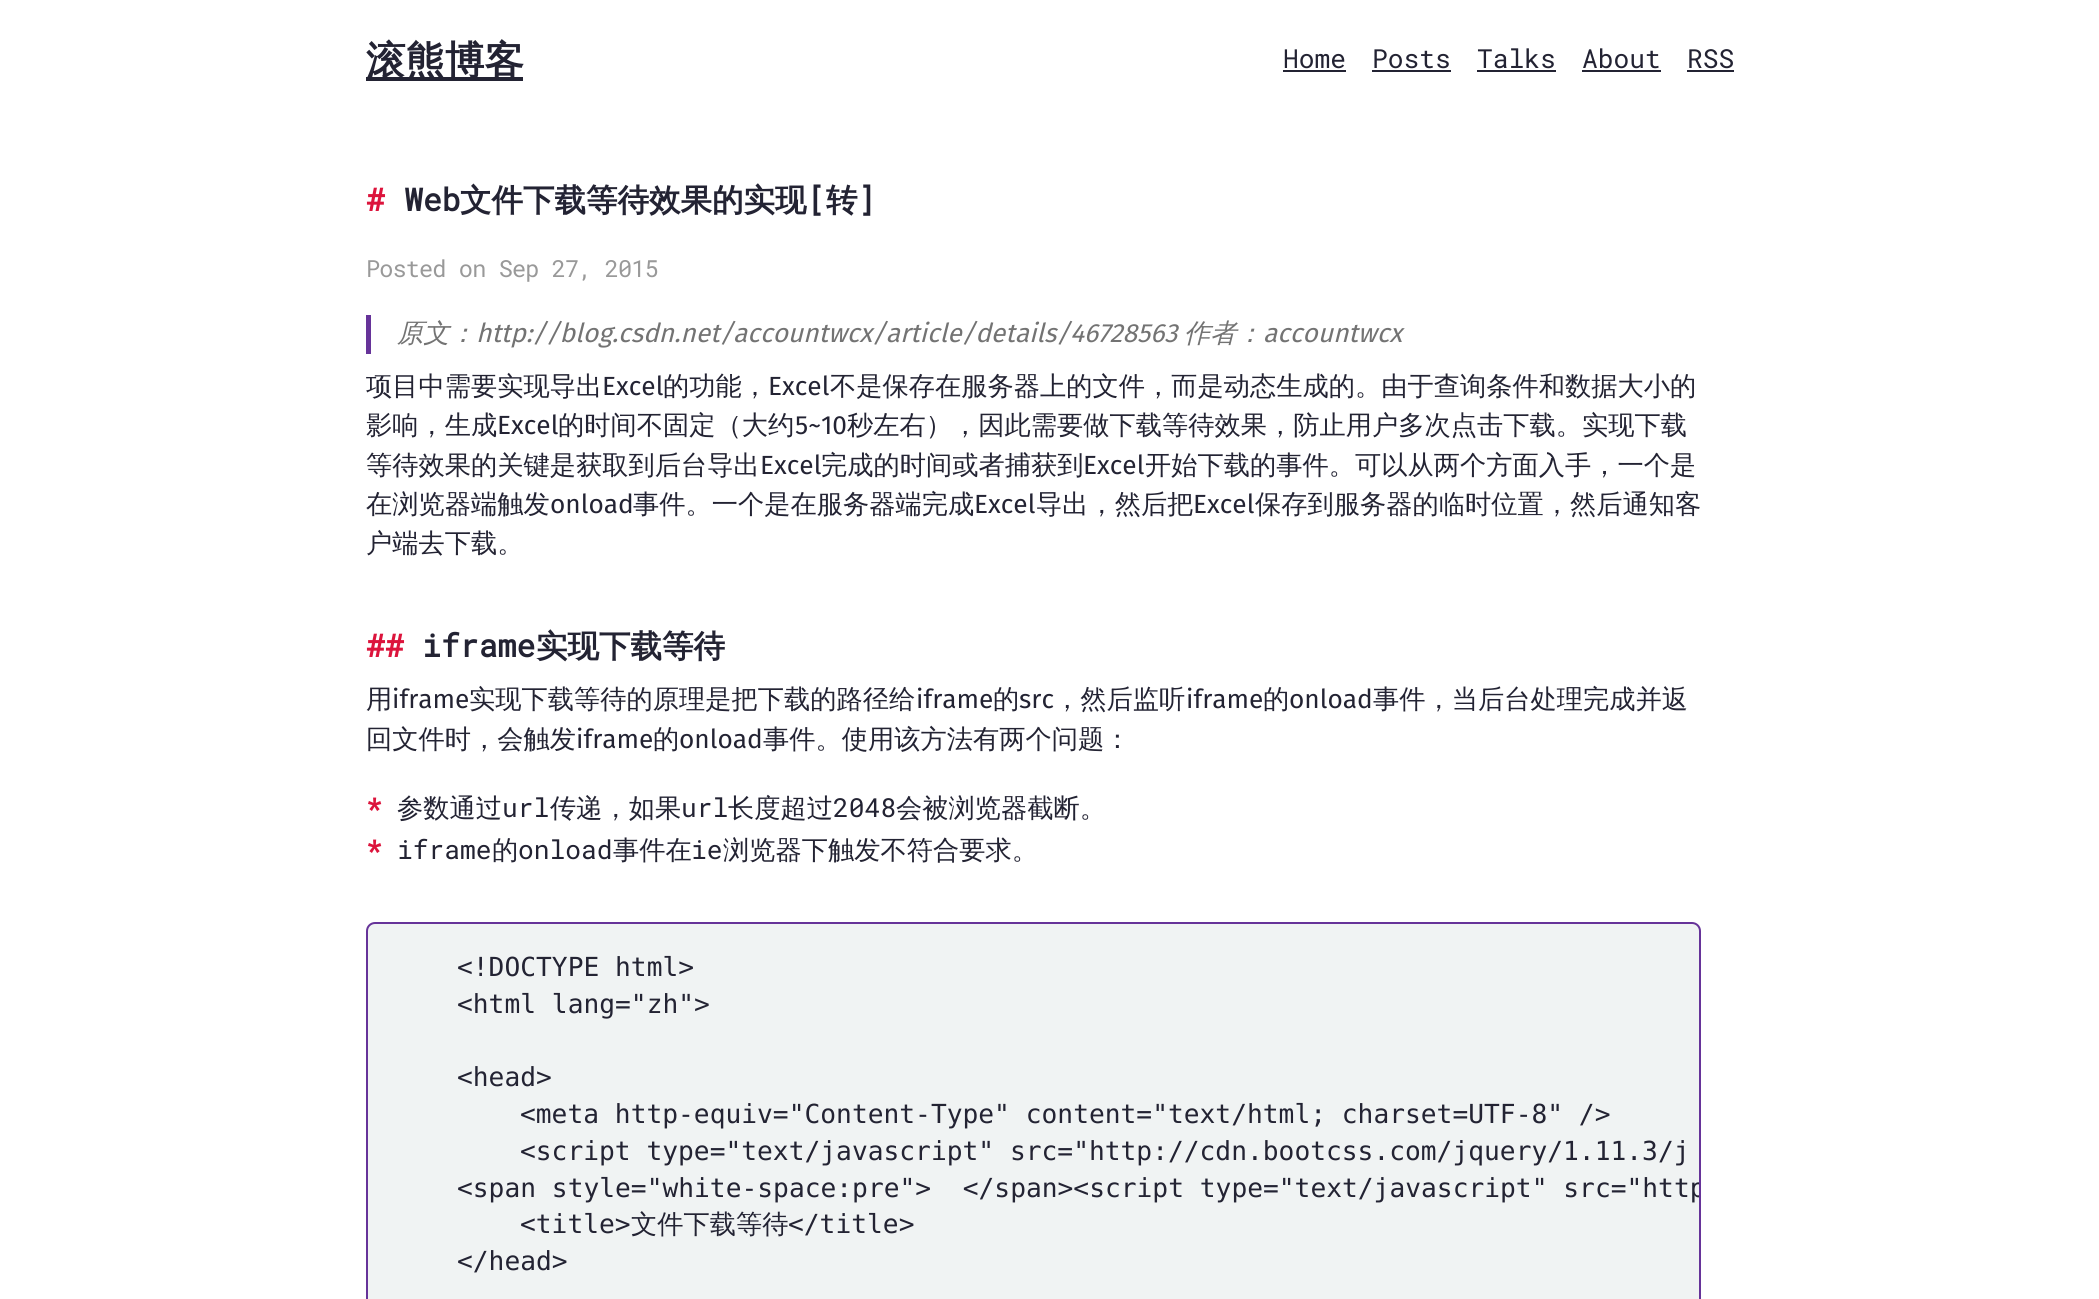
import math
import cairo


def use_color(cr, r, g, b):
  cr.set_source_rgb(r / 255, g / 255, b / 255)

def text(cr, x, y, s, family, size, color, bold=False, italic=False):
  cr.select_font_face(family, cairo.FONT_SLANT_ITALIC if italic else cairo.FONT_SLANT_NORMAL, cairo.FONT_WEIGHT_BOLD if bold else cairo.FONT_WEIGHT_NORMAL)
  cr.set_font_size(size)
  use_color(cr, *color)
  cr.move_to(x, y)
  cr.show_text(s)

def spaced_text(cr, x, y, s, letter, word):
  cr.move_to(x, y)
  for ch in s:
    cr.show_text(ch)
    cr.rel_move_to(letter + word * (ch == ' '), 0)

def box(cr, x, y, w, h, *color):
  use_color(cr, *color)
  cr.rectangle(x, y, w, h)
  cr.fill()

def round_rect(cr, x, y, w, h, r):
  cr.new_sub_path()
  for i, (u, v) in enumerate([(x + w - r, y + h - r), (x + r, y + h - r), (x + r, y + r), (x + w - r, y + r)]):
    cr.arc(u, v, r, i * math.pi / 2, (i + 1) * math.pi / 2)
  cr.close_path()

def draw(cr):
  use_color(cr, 255, 255, 255)
  cr.paint()
  box(cr, 366, 77, 157, 4, 35, 35, 51)
  box(cr, 1283, 70, 63, 2, 35, 35, 51)
  box(cr, 1372, 70, 79, 2, 35, 35, 51)
  box(cr, 1477, 70, 79, 2, 35, 35, 51)
  box(cr, 1582, 70, 79, 2, 35, 35, 51)
  box(cr, 1687, 70, 47, 2, 35, 35, 51)
  box(cr, 366, 315, 5, 39, 102, 51, 153)
  use_color(cr, 240, 243, 243)
  round_rect(cr, 367, 923, 1333, 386, 8)
  cr.fill_preserve()
  use_color(cr, 102, 51, 153)
  cr.stroke()
  text(cr, 366, 74, "滚熊博客", "WenQuanYi Zen Hei", 39.5, (35, 35, 51), bold=True)
  text(cr, 1283, 68, "Home", "Roboto Mono", 26.25, (35, 35, 51))
  text(cr, 1372, 68, "Posts", "Roboto Mono", 26.25, (35, 35, 51))
  text(cr, 1477, 68, "Talks", "Roboto Mono", 26.25, (35, 35, 51))
  text(cr, 1582, 68, "About", "Roboto Mono", 26.25, (35, 35, 51))
  text(cr, 1687, 68, "RSS", "Roboto Mono", 26.25, (35, 35, 51))
  text(cr, 366, 211, "#", "Roboto Mono", 31.5, (220, 20, 60), bold=True)
  text(cr, 404, 211, "Web", "Roboto Mono", 31.5, (35, 35, 51), bold=True)
  text(cr, 460, 211, "文件下载等待效果的实现", "WenQuanYi Zen Hei", 31.5, (35, 35, 51), bold=True)
  text(cr, 807, 211, "[", "Roboto Mono", 31.5, (35, 35, 51), bold=True)
  text(cr, 826, 211, "转", "WenQuanYi Zen Hei", 31.5, (35, 35, 51), bold=True)
  text(cr, 857, 211, "]", "Roboto Mono", 31.5, (35, 35, 51), bold=True)
  cr.select_font_face("Roboto Mono")
  cr.set_font_size(23.6)
  use_color(cr, 153, 153, 153)
  spaced_text(cr, 366, 277, "Posted on Sep 27, 2015", -0.9, 0)
  text(cr, 397, 342, "原文：", "WenQuanYi Zen Hei Medium", 26.25, (115, 115, 115), italic=True)
  text(cr, 476, 342, "http://blog.csdn.net/accountwcx/article/details/46728563", "Fira Sans", 26.25, (115, 115, 115), italic=True)
  text(cr, 1184, 342, "作者：", "WenQuanYi Zen Hei Medium", 26.25, (115, 115, 115), italic=True)
  text(cr, 1263, 342, "accountwcx", "Fira Sans", 26.25, (115, 115, 115), italic=True)
  text(cr, 366, 395, "项目中需要实现导出", "WenQuanYi Zen Hei Medium", 26.25, (35, 35, 51))
  text(cr, 602, 395, "Excel", "Fira Sans", 26.25, (35, 35, 51))
  text(cr, 663, 395, "的功能，", "WenQuanYi Zen Hei Medium", 26.25, (35, 35, 51))
  text(cr, 768, 395, "Excel", "Fira Sans", 26.25, (35, 35, 51))
  text(cr, 830, 395, "不是保存在服务器上的文件，而是动态生成的。由于查询条件和数据大小的", "WenQuanYi Zen Hei Medium", 26.25, (35, 35, 51))
  text(cr, 366, 434, "影响，生成", "WenQuanYi Zen Hei Medium", 26.25, (35, 35, 51))
  text(cr, 497, 434, "Excel", "Fira Sans", 26.25, (35, 35, 51))
  text(cr, 558, 434, "的时间不固定（大约", "WenQuanYi Zen Hei Medium", 26.25, (35, 35, 51))
  text(cr, 795, 434, "5~10", "Fira Sans", 26.25, (35, 35, 51))
  text(cr, 847, 434, "秒左右），因此需要做下载等待效果，防止用户多次点击下载。实现下载", "WenQuanYi Zen Hei Medium", 26.25, (35, 35, 51))
  text(cr, 366, 474, "等待效果的关键是获取到后台导出", "WenQuanYi Zen Hei Medium", 26.25, (35, 35, 51))
  text(cr, 760, 474, "Excel", "Fira Sans", 26.25, (35, 35, 51))
  text(cr, 821, 474, "完成的时间或者捕获到", "WenQuanYi Zen Hei Medium", 26.25, (35, 35, 51))
  text(cr, 1083, 474, "Excel", "Fira Sans", 26.25, (35, 35, 51))
  text(cr, 1145, 474, "开始下载的事件。可以从两个方面入手，一个是", "WenQuanYi Zen Hei Medium", 26.25, (35, 35, 51))
  text(cr, 366, 513, "在浏览器端触发", "WenQuanYi Zen Hei Medium", 26.25, (35, 35, 51))
  text(cr, 550, 513, "onload", "Fira Sans", 26.25, (35, 35, 51))
  text(cr, 633, 513, "事件。一个是在服务器端完成", "WenQuanYi Zen Hei Medium", 26.25, (35, 35, 51))
  text(cr, 974, 513, "Excel", "Fira Sans", 26.25, (35, 35, 51))
  text(cr, 1036, 513, "导出，然后把", "WenQuanYi Zen Hei Medium", 26.25, (35, 35, 51))
  text(cr, 1193, 513, "Excel", "Fira Sans", 26.25, (35, 35, 51))
  text(cr, 1255, 513, "保存到服务器的临时位置，然后通知客", "WenQuanYi Zen Hei Medium", 26.25, (35, 35, 51))
  text(cr, 366, 552, "户端去下载。", "WenQuanYi Zen Hei Medium", 26.25, (35, 35, 51))
  text(cr, 366, 657, "##", "Roboto Mono", 31.5, (220, 20, 60), bold=True)
  text(cr, 422, 657, "iframe", "Roboto Mono", 31.5, (35, 35, 51), bold=True)
  text(cr, 536, 657, "实现下载等待", "WenQuanYi Zen Hei", 31.5, (35, 35, 51), bold=True)
  text(cr, 366, 708, "用", "WenQuanYi Zen Hei Medium", 26.25, (35, 35, 51))
  text(cr, 392, 708, "iframe", "Fira Sans", 26.25, (35, 35, 51))
  text(cr, 469, 708, "实现下载等待的原理是把下载的路径给", "WenQuanYi Zen Hei Medium", 26.25, (35, 35, 51))
  text(cr, 916, 708, "iframe", "Fira Sans", 26.25, (35, 35, 51))
  text(cr, 993, 708, "的", "WenQuanYi Zen Hei Medium", 26.25, (35, 35, 51))
  text(cr, 1019, 708, "src", "Fira Sans", 26.25, (35, 35, 51))
  text(cr, 1054, 708, "，然后监听", "WenQuanYi Zen Hei Medium", 26.25, (35, 35, 51))
  text(cr, 1186, 708, "iframe", "Fira Sans", 26.25, (35, 35, 51))
  text(cr, 1263, 708, "的", "WenQuanYi Zen Hei Medium", 26.25, (35, 35, 51))
  text(cr, 1289, 708, "onload", "Fira Sans", 26.25, (35, 35, 51))
  text(cr, 1373, 708, "事件，当后台处理完成并返", "WenQuanYi Zen Hei Medium", 26.25, (35, 35, 51))
  text(cr, 366, 748, "回文件时，会触发", "WenQuanYi Zen Hei Medium", 26.25, (35, 35, 51))
  text(cr, 576, 748, "iframe", "Fira Sans", 26.25, (35, 35, 51))
  text(cr, 653, 748, "的", "WenQuanYi Zen Hei Medium", 26.25, (35, 35, 51))
  text(cr, 679, 748, "onload", "Fira Sans", 26.25, (35, 35, 51))
  text(cr, 763, 748, "事件。使用该方法有两个问题：", "WenQuanYi Zen Hei Medium", 26.25, (35, 35, 51))
  text(cr, 366, 817, "*", "Roboto Mono", 26.25, (220, 20, 60), bold=True)
  text(cr, 397, 817, "参数通过", "WenQuanYi Zen Hei Medium", 26.25, (35, 35, 51))
  text(cr, 502, 817, "url", "Roboto Mono", 26.25, (35, 35, 51))
  text(cr, 550, 817, "传递，如果", "WenQuanYi Zen Hei Medium", 26.25, (35, 35, 51))
  text(cr, 681, 817, "url", "Roboto Mono", 26.25, (35, 35, 51))
  text(cr, 728, 817, "长度超过", "WenQuanYi Zen Hei Medium", 26.25, (35, 35, 51))
  text(cr, 833, 817, "2048", "Roboto Mono", 26.25, (35, 35, 51))
  text(cr, 896, 817, "会被浏览器截断。", "WenQuanYi Zen Hei Medium", 26.25, (35, 35, 51))
  text(cr, 366, 859, "*", "Roboto Mono", 26.25, (220, 20, 60), bold=True)
  text(cr, 397, 859, "iframe", "Roboto Mono", 26.25, (35, 35, 51))
  text(cr, 492, 859, "的", "WenQuanYi Zen Hei Medium", 26.25, (35, 35, 51))
  text(cr, 518, 859, "onload", "Roboto Mono", 26.25, (35, 35, 51))
  text(cr, 613, 859, "事件在", "WenQuanYi Zen Hei Medium", 26.25, (35, 35, 51))
  text(cr, 691, 859, "ie", "Roboto Mono", 26.25, (35, 35, 51))
  text(cr, 723, 859, "浏览器下触发不符合要求。", "WenQuanYi Zen Hei Medium", 26.25, (35, 35, 51))
  text(cr, 457, 976, "<!DOCTYPE html>", "DejaVu Sans Mono", 26.25, (35, 35, 51))
  text(cr, 457, 1013, "<html lang=\"zh\">", "DejaVu Sans Mono", 26.25, (35, 35, 51))
  text(cr, 457, 1086, "<head>", "DejaVu Sans Mono", 26.25, (35, 35, 51))
  text(cr, 520, 1123, "<meta http-equiv=\"Content-Type\" content=\"text/html; charset=UTF-8\" />", "DejaVu Sans Mono", 26.25, (35, 35, 51))
  text(cr, 520, 1160, "<script type=\"text/javascript\" src=\"http://cdn.bootcss.com/jquery/1.11.3/j", "DejaVu Sans Mono", 26.25, (35, 35, 51))
  cr.save()
  round_rect(cr, 368, 924, 1331, 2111, 7)
  cr.clip()
  text(cr, 457, 1197, "<span style=\"white-space:pre\">  </span><script type=\"text/javascript\" src=\"http", "DejaVu Sans Mono", 26.25, (35, 35, 51))
  cr.restore()
  text(cr, 520, 1233, "<title>", "DejaVu Sans Mono", 26.25, (35, 35, 51))
  text(cr, 631, 1233, "文件下载等待", "WenQuanYi Zen Hei Medium", 26.25, (35, 35, 51))
  text(cr, 788, 1233, "</title>", "DejaVu Sans Mono", 26.25, (35, 35, 51))
  text(cr, 457, 1270, "</head>", "DejaVu Sans Mono", 26.25, (35, 35, 51))


surface = cairo.ImageSurface(cairo.FORMAT_RGB24, 2099, 1299)
cr = cairo.Context(surface)
options = cairo.FontOptions()
options.set_hint_metrics(cairo.HINT_METRICS_OFF)
options.set_hint_style(cairo.HINT_STYLE_NONE)
cr.set_font_options(options)
cr.set_miter_limit(4)
draw(cr)
surface.write_to_png("out.png")
